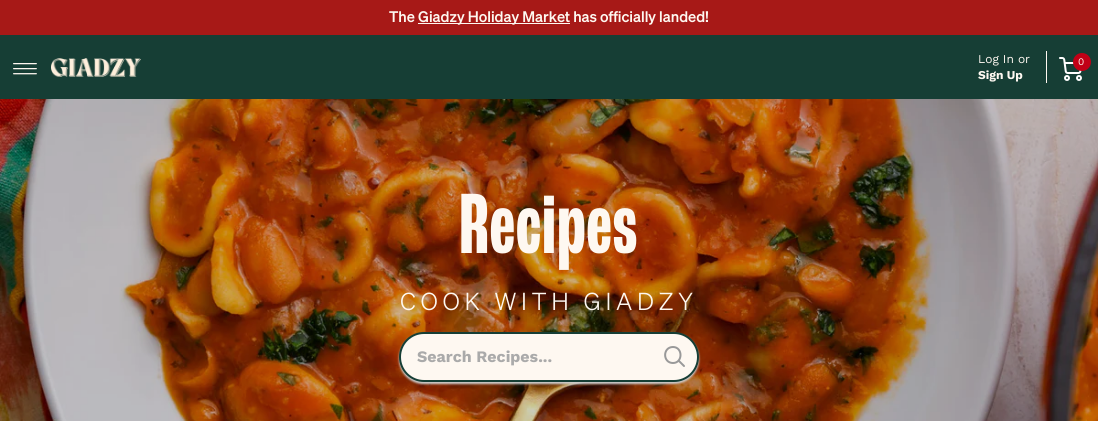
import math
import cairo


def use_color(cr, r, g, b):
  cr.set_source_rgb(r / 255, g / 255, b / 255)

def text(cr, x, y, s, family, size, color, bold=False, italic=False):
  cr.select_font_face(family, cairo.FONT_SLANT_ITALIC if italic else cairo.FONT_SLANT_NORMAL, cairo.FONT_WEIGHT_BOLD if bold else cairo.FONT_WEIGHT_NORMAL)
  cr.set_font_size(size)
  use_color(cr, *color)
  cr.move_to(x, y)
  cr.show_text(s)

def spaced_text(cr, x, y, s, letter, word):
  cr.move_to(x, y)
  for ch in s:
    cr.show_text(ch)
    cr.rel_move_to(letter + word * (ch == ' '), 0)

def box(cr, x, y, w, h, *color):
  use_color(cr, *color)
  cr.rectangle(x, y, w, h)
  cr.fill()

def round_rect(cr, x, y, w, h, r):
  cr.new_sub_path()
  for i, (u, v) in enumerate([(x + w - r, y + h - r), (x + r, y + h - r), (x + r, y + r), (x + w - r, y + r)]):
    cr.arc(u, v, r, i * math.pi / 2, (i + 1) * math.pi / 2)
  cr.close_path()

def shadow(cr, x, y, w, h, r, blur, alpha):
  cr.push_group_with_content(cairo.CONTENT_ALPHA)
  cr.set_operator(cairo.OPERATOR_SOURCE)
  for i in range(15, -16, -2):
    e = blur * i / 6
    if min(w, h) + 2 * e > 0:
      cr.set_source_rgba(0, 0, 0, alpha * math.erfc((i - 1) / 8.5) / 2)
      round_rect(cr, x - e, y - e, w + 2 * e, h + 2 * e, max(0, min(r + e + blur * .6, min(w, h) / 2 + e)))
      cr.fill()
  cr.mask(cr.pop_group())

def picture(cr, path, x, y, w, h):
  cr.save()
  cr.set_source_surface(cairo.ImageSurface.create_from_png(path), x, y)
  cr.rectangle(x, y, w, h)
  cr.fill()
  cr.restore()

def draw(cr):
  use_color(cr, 255, 255, 255)
  cr.paint()
  box(cr, 0, 0, 1098, 35, 167, 25, 23)
  box(cr, 418, 23, 152, 1, 254, 248, 241)
  box(cr, 0, 35, 1098, 64, 22, 62, 53)
  picture(cr, "img_01.png", 13, 63, 24, 12)
  picture(cr, "img_02.png", 51, 58, 90, 19)
  box(cr, 1046, 51, 1, 32, 254, 248, 241)
  picture(cr, "img_03.png", 1059, 57, 23, 24)
  use_color(cr, 193, 0, 22)
  cr.arc(1082, 62, 9, 0, 2 * math.pi)
  cr.fill()
  picture(cr, "img_04.png", 0, 99, 1098, 322)
  use_color(cr, 204, 204, 204)
  shadow(cr, 399, 334, 300, 50, 25, 1, 1)
  use_color(cr, 254, 248, 241)
  round_rect(cr, 400, 333, 298, 48, 24)
  cr.fill_preserve()
  use_color(cr, 22, 62, 53)
  cr.stroke()
  cr.new_path()
  cr.move_to(673, 363)
  cr.curve_to(683, 363, 683, 347, 673, 347)
  cr.curve_to(662.5, 347, 662.5, 363, 673, 363)
  cr.close_path()
  cr.move_to(684, 366)
  cr.line_to(678.5, 360.5)
  use_color(cr, 153, 153, 153)
  cr.set_line_cap(cairo.LINE_CAP_ROUND)
  cr.set_line_join(cairo.LINE_JOIN_ROUND)
  cr.stroke()
  text(cr, 389, 22, "The", "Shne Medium", 15, (254, 248, 241))
  text(cr, 418, 22, "Giadzy Holiday Market has officially landed!", "Shne Medium", 15, (254, 248, 241))
  text(cr, 978, 63, "Log In or", "Work Sans", 12, (254, 248, 241))
  text(cr, 978, 79, "Sign Up", "Work Sans", 12, (254, 248, 241), bold=True)
  cr.select_font_face("Work Sans")
  cr.set_font_size(10)
  spaced_text(cr, 1078, 65, "0", 1, 0)
  text(cr, 459, 253, "Recipes", "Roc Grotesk", 90, (254, 248, 241), bold=True)
  cr.select_font_face("Shne Light")
  cr.set_font_size(24)
  spaced_text(cr, 400, 310, "COOK WITH GIADZY", 4.75, 0)
  text(cr, 417, 362, "Search Recipes...", "Work Sans", 16, (170, 170, 170), bold=True)


surface = cairo.ImageSurface(cairo.FORMAT_RGB24, 1098, 421)
cr = cairo.Context(surface)
options = cairo.FontOptions()
options.set_hint_metrics(cairo.HINT_METRICS_OFF)
options.set_hint_style(cairo.HINT_STYLE_NONE)
cr.set_font_options(options)
cr.set_miter_limit(4)
draw(cr)
surface.write_to_png("out.png")
